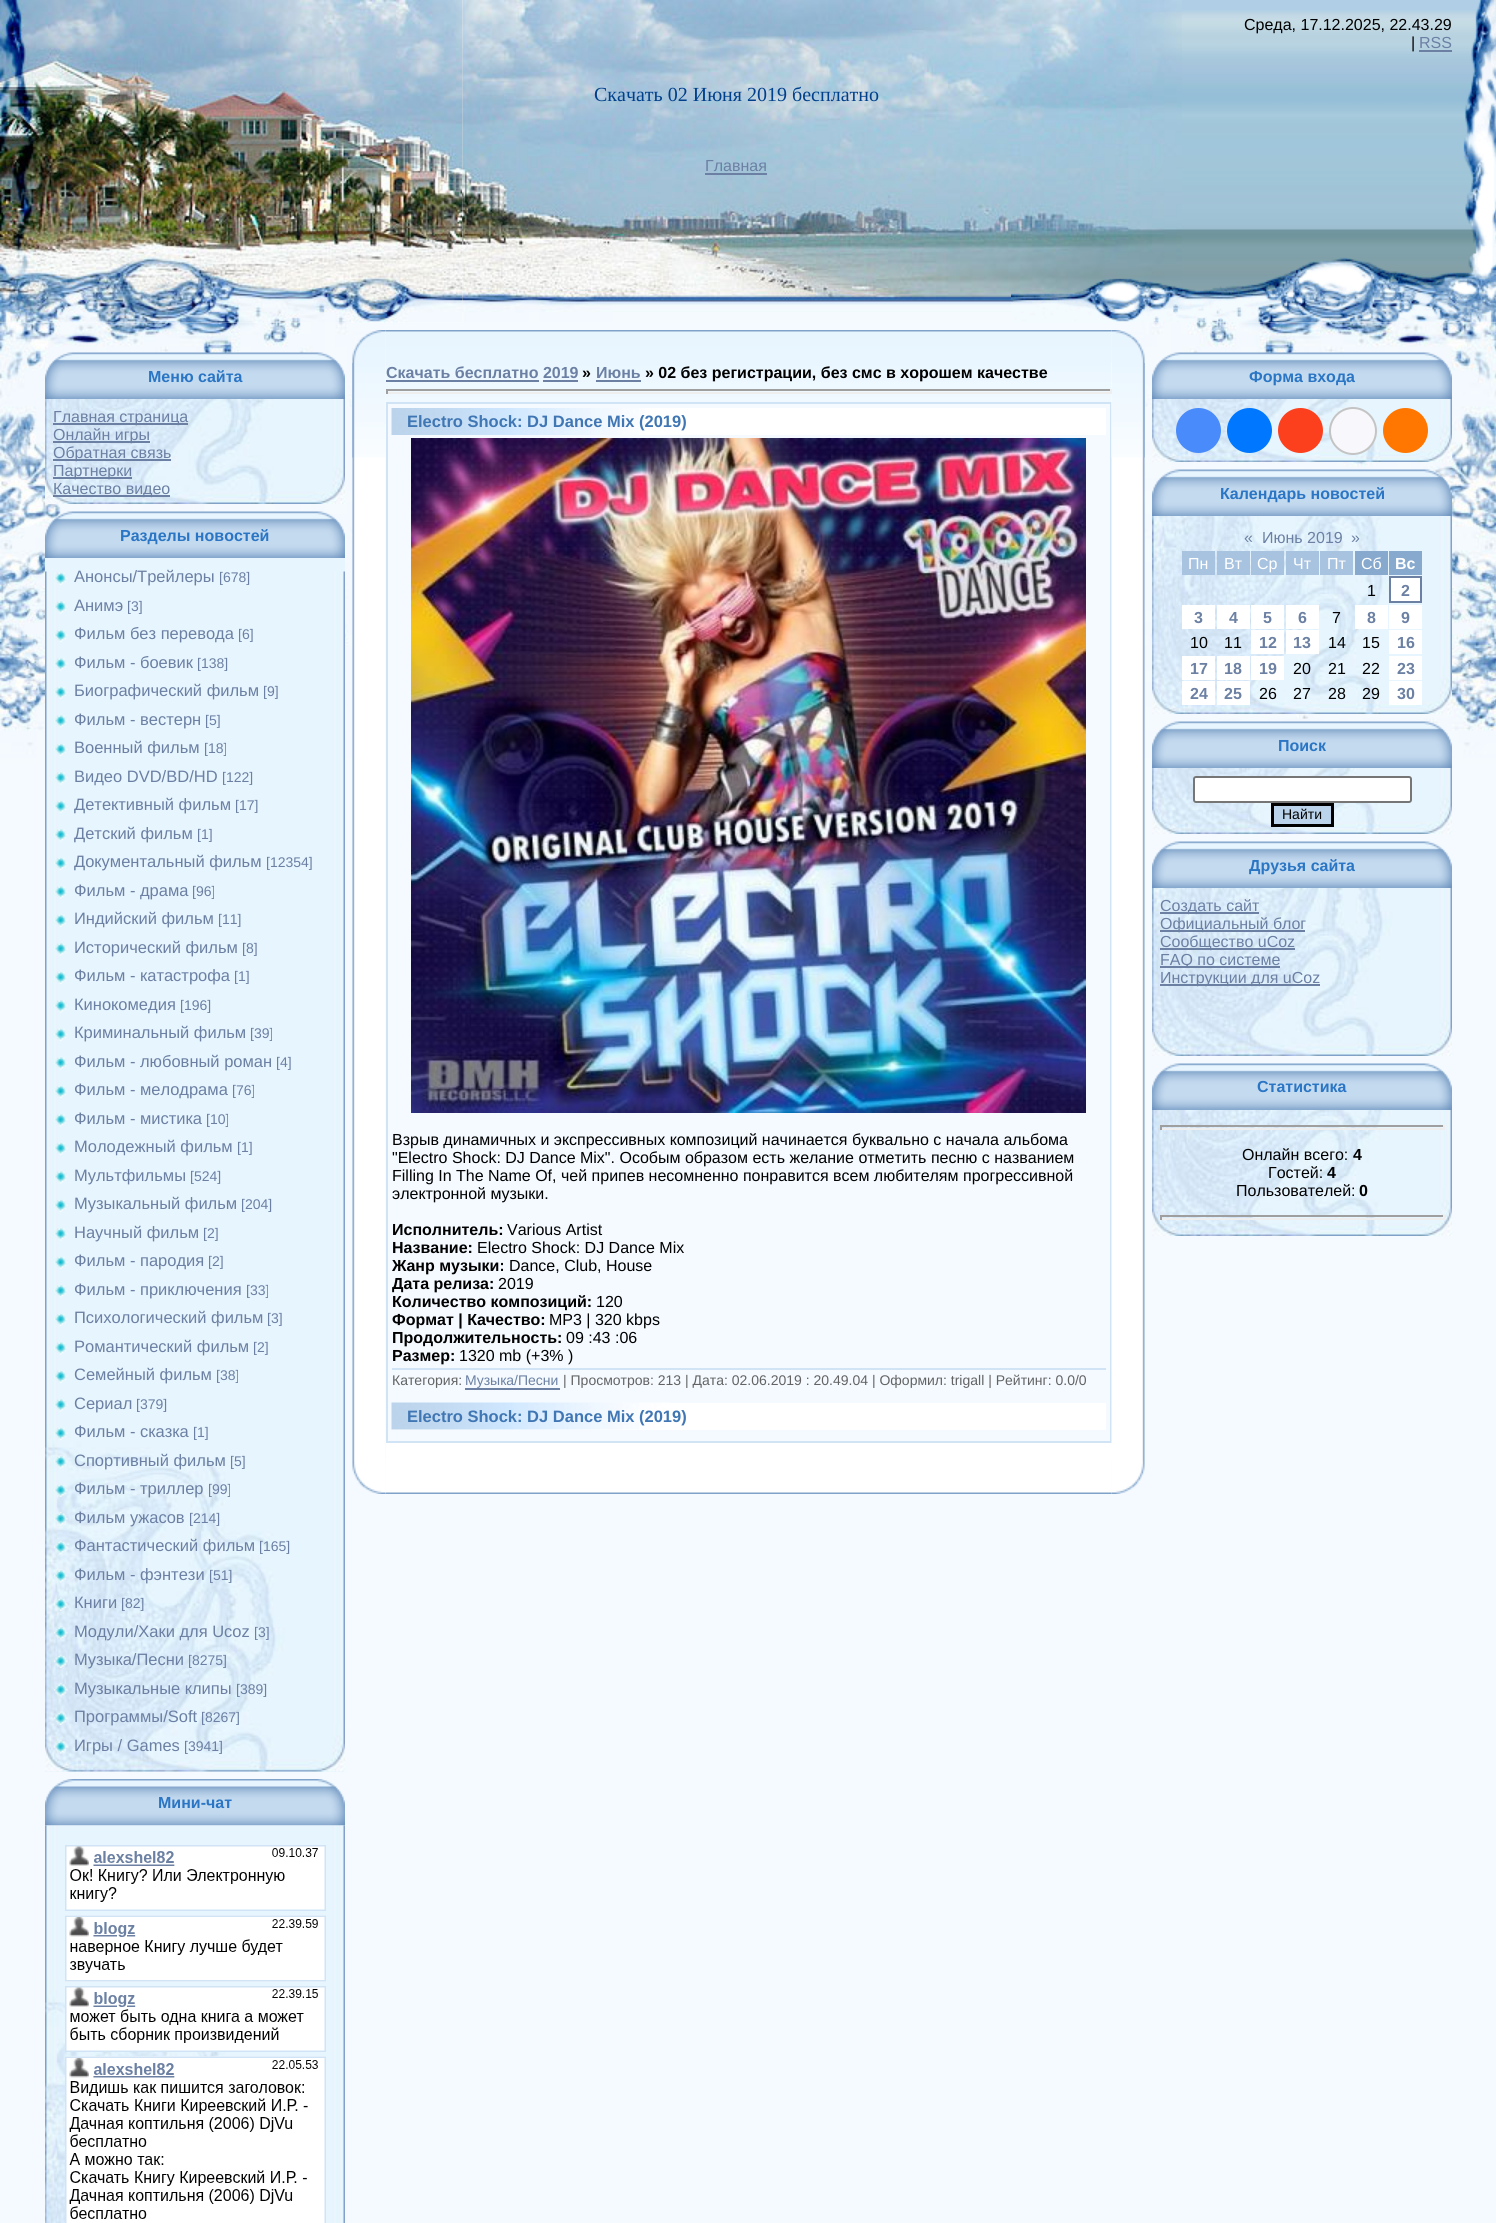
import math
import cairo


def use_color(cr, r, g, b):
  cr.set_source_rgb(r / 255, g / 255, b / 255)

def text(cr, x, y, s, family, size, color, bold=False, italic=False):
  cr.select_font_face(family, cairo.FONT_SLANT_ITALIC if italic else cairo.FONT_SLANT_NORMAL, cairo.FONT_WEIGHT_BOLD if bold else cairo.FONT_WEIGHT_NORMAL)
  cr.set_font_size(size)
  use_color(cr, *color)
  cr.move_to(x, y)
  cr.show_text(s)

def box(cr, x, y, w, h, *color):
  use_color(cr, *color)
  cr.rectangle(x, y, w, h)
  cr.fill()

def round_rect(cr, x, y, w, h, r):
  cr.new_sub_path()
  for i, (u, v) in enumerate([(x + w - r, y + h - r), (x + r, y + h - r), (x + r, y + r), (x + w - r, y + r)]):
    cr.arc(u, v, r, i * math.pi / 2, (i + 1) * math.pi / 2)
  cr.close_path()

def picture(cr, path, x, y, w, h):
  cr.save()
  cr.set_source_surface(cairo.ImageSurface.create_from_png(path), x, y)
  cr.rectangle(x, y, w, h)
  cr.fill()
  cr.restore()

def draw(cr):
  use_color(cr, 244, 250, 255)
  cr.paint()
  picture(cr, "img_01.png", 1182, 0, 298, 292)
  picture(cr, "img_02.png", 0, 0, 1182, 323)
  picture(cr, "img_06.png", 0, 322, 370, 442)
  picture(cr, "img_03.png", 0, 0, 462, 323)
  picture(cr, "img_04.png", 1011, 0, 485, 323)
  box(cr, 1419, 50, 33, 2, 107, 128, 163)
  box(cr, 705, 173, 62, 2, 107, 128, 163)
  picture(cr, "img_05.png", 1128, 322, 368, 442)
  picture(cr, "img_07.png", 45, 352, 300, 47)
  picture(cr, "img_08.png", 45, 399, 300, 105)
  box(cr, 53, 423, 135, 2, 107, 128, 163)
  box(cr, 53, 441, 97, 2, 107, 128, 163)
  box(cr, 53, 459, 118, 2, 107, 128, 163)
  box(cr, 53, 477, 79, 2, 107, 128, 163)
  box(cr, 53, 495, 117, 2, 107, 128, 163)
  picture(cr, "img_09.png", 45, 511, 300, 47)
  box(cr, 45, 558, 300, 1214, 231, 245, 255)
  picture(cr, "img_10.png", 45, 571, 300, 1201)
  picture(cr, "img_11.png", 54, 572, 14, 13)
  picture(cr, "img_12.png", 54, 601, 14, 13)
  picture(cr, "img_11.png", 54, 629, 14, 13)
  picture(cr, "img_12.png", 54, 658, 14, 13)
  picture(cr, "img_11.png", 54, 686, 14, 13)
  picture(cr, "img_12.png", 54, 715, 14, 13)
  picture(cr, "img_11.png", 54, 743, 14, 13)
  picture(cr, "img_12.png", 54, 772, 14, 13)
  picture(cr, "img_11.png", 54, 800, 14, 13)
  picture(cr, "img_12.png", 54, 829, 14, 13)
  picture(cr, "img_11.png", 54, 857, 14, 13)
  picture(cr, "img_12.png", 54, 886, 14, 13)
  picture(cr, "img_11.png", 54, 914, 14, 13)
  picture(cr, "img_12.png", 54, 943, 14, 13)
  picture(cr, "img_11.png", 54, 971, 14, 13)
  picture(cr, "img_12.png", 54, 1000, 14, 13)
  picture(cr, "img_11.png", 54, 1028, 14, 13)
  picture(cr, "img_12.png", 54, 1057, 14, 13)
  picture(cr, "img_11.png", 54, 1085, 14, 13)
  picture(cr, "img_12.png", 54, 1114, 14, 13)
  picture(cr, "img_11.png", 54, 1142, 14, 13)
  picture(cr, "img_12.png", 54, 1171, 14, 13)
  picture(cr, "img_11.png", 54, 1199, 14, 13)
  picture(cr, "img_12.png", 54, 1228, 14, 13)
  picture(cr, "img_11.png", 54, 1256, 14, 13)
  picture(cr, "img_12.png", 54, 1285, 14, 13)
  picture(cr, "img_11.png", 54, 1313, 14, 13)
  picture(cr, "img_12.png", 54, 1342, 14, 13)
  picture(cr, "img_11.png", 54, 1370, 14, 13)
  picture(cr, "img_12.png", 54, 1399, 14, 13)
  picture(cr, "img_13.png", 54, 1427, 14, 13)
  picture(cr, "img_14.png", 54, 1455, 14, 14)
  picture(cr, "img_15.png", 54, 1485, 14, 12)
  picture(cr, "img_16.png", 54, 1512, 14, 14)
  picture(cr, "img_17.png", 54, 1540, 14, 14)
  picture(cr, "img_18.png", 54, 1569, 14, 14)
  picture(cr, "img_19.png", 54, 1597, 14, 14)
  picture(cr, "img_20.png", 54, 1626, 14, 14)
  picture(cr, "img_21.png", 54, 1654, 14, 14)
  picture(cr, "img_22.png", 54, 1683, 14, 14)
  picture(cr, "img_23.png", 54, 1711, 14, 14)
  picture(cr, "img_24.png", 54, 1740, 14, 14)
  picture(cr, "img_25.png", 45, 1779, 300, 47)
  picture(cr, "img_26.png", 45, 1825, 300, 398)
  picture(cr, "img_27.png", 65, 1845, 261, 378)
  picture(cr, "img_29.png", 385, 330, 727, 33)
  picture(cr, "img_28.png", 352, 330, 34, 33)
  picture(cr, "img_30.png", 1111, 330, 34, 33)
  picture(cr, "img_31.png", 352, 363, 34, 1098)
  box(cr, 386, 363, 726, 1098, 255, 255, 255)
  picture(cr, "img_33.png", 385, 363, 727, 94)
  picture(cr, "img_32.png", 352, 363, 34, 95)
  box(cr, 386, 380, 153, 2, 107, 128, 163)
  box(cr, 543, 380, 35, 2, 107, 128, 163)
  box(cr, 596, 380, 45, 2, 107, 128, 163)
  use_color(cr, 244, 250, 255)
  cr.rectangle(387, 403, 724, 1039)
  cr.fill_preserve()
  use_color(cr, 209, 228, 245)
  cr.stroke()
  picture(cr, "img_37.png", 1111, 363, 34, 1098)
  picture(cr, "img_38.png", 1111, 363, 34, 95)
  box(cr, 386, 389, 726, 2, 159, 159, 159)
  box(cr, 1110, 389, 2, 5, 238, 238, 238)
  box(cr, 386, 392, 726, 2, 238, 238, 238)
  box(cr, 386, 389, 2, 5, 159, 159, 159)
  box(cr, 645, 408, 461, 27, 255, 255, 255)
  picture(cr, "img_34.png", 391, 408, 254, 27)
  picture(cr, "img_35.png", 411, 438, 675, 675)
  box(cr, 392, 1368, 714, 2, 209, 228, 245)
  box(cr, 465, 1388, 95, 2, 107, 128, 163)
  box(cr, 392, 1403, 714, 27, 255, 255, 255)
  picture(cr, "img_36.png", 391, 1402, 278, 28)
  picture(cr, "img_40.png", 385, 1461, 727, 33)
  picture(cr, "img_39.png", 352, 1461, 34, 33)
  picture(cr, "img_41.png", 1111, 1461, 34, 33)
  picture(cr, "img_42.png", 1152, 352, 300, 47)
  picture(cr, "img_43.png", 1152, 399, 300, 63)
  use_color(cr, 73, 139, 250)
  cr.arc(1198.5, 430.5, 22.5, 0, 2 * math.pi)
  cr.fill()
  use_color(cr, 0, 119, 255)
  cr.arc(1249.5, 430.5, 22.5, 0, 2 * math.pi)
  cr.fill()
  use_color(cr, 252, 63, 29)
  cr.arc(1300.5, 430.5, 22.5, 0, 2 * math.pi)
  cr.fill()
  use_color(cr, 248, 248, 252)
  cr.arc(1353, 431, 23, 0, 2 * math.pi)
  cr.fill_preserve()
  use_color(cr, 196, 196, 196)
  cr.stroke()
  use_color(cr, 255, 119, 0)
  cr.arc(1405.5, 430.5, 22.5, 0, 2 * math.pi)
  cr.fill()
  picture(cr, "img_44.png", 1152, 469, 300, 47)
  picture(cr, "img_45.png", 1152, 516, 300, 198)
  box(cr, 1182, 551, 33, 24, 168, 195, 224)
  box(cr, 1217, 551, 33, 24, 168, 195, 224)
  box(cr, 1251, 551, 33, 24, 168, 195, 224)
  box(cr, 1286, 551, 33, 24, 168, 195, 224)
  box(cr, 1320, 551, 33, 24, 168, 195, 224)
  box(cr, 1355, 551, 33, 24, 136, 169, 206)
  box(cr, 1389, 551, 33, 24, 136, 169, 206)
  use_color(cr, 255, 255, 255)
  cr.rectangle(1390, 577, 31, 25)
  cr.fill_preserve()
  use_color(cr, 107, 128, 163)
  cr.stroke()
  box(cr, 1182, 605, 33, 24, 255, 255, 255)
  box(cr, 1217, 605, 33, 24, 255, 255, 255)
  box(cr, 1251, 605, 33, 24, 255, 255, 255)
  box(cr, 1286, 605, 33, 24, 255, 255, 255)
  box(cr, 1355, 605, 33, 24, 255, 255, 255)
  box(cr, 1389, 605, 33, 24, 255, 255, 255)
  box(cr, 1251, 630, 33, 24, 255, 255, 255)
  box(cr, 1286, 630, 33, 24, 255, 255, 255)
  box(cr, 1389, 630, 33, 24, 255, 255, 255)
  box(cr, 1182, 656, 33, 24, 255, 255, 255)
  box(cr, 1217, 656, 33, 24, 255, 255, 255)
  box(cr, 1251, 656, 33, 24, 255, 255, 255)
  box(cr, 1389, 656, 33, 24, 255, 255, 255)
  box(cr, 1182, 681, 33, 24, 255, 255, 255)
  box(cr, 1217, 681, 33, 24, 255, 255, 255)
  box(cr, 1389, 681, 33, 24, 255, 255, 255)
  picture(cr, "img_46.png", 1152, 721, 300, 47)
  picture(cr, "img_47.png", 1152, 768, 300, 66)
  round_rect(cr, 1194, 777, 217, 25, 2)
  cr.fill_preserve()
  use_color(cr, 118, 118, 118)
  cr.stroke()
  use_color(cr, 188, 212, 235)
  cr.rectangle(1272.5, 804.5, 60, 21)
  cr.fill_preserve()
  use_color(cr, 0, 0, 0)
  cr.set_line_width(3)
  cr.stroke()
  picture(cr, "img_48.png", 1152, 841, 300, 47)
  picture(cr, "img_49.png", 1152, 888, 300, 168)
  box(cr, 1160, 912, 99, 2, 107, 128, 163)
  box(cr, 1160, 930, 145, 2, 107, 128, 163)
  box(cr, 1160, 948, 135, 2, 107, 128, 163)
  box(cr, 1160, 966, 120, 2, 107, 128, 163)
  box(cr, 1160, 984, 160, 2, 107, 128, 163)
  picture(cr, "img_48.png", 1152, 1063, 300, 47)
  picture(cr, "img_50.png", 1152, 1110, 300, 126)
  box(cr, 1160, 1125, 285, 2, 159, 159, 159)
  box(cr, 1443, 1125, 2, 5, 238, 238, 238)
  box(cr, 1160, 1128, 285, 2, 238, 238, 238)
  box(cr, 1160, 1125, 2, 5, 159, 159, 159)
  box(cr, 1160, 1215, 285, 2, 159, 159, 159)
  box(cr, 1443, 1215, 2, 5, 238, 238, 238)
  box(cr, 1160, 1218, 285, 2, 238, 238, 238)
  box(cr, 1160, 1215, 2, 5, 159, 159, 159)
  text(cr, 1244, 30, "Среда, 17.12.2025, 22.43.29", "Liberation Sans", 16, (0, 0, 0))
  text(cr, 1411, 48, "|", "Liberation Sans", 16, (0, 0, 0))
  text(cr, 1419, 48, "RSS", "Liberation Sans", 16, (107, 128, 163))
  text(cr, 594, 101, "Скачать 02 Июня 2019 бесплатно", "Liberation Serif", 20, (0, 64, 139))
  text(cr, 705, 171, "Главная", "Liberation Sans", 16, (107, 128, 163))
  text(cr, 148, 382, "Меню сайта", "Liberation Sans", 16, (42, 117, 196), bold=True)
  text(cr, 53, 422, "Главная страница", "Liberation Sans", 16, (107, 128, 163))
  text(cr, 53, 440, "Онлайн игры", "Liberation Sans", 16, (107, 128, 163))
  text(cr, 53, 458, "Обратная связь", "Liberation Sans", 16, (107, 128, 163))
  text(cr, 53, 476, "Партнерки", "Liberation Sans", 16, (107, 128, 163))
  text(cr, 53, 494, "Качество видео", "Liberation Sans", 16, (107, 128, 163))
  text(cr, 120, 541, "Разделы новостей", "Liberation Sans", 16, (42, 117, 196), bold=True)
  text(cr, 74, 582, "Анонсы/Трейлеры", "Liberation Sans", 16.5, (107, 128, 163))
  text(cr, 219, 582, "[678]", "Liberation Sans", 14, (107, 128, 163))
  text(cr, 74, 611, "Анимэ", "Liberation Sans", 16.5, (107, 128, 163))
  text(cr, 127, 611, "[3]", "Liberation Sans", 14, (107, 128, 163))
  text(cr, 74, 639, "Фильм без перевода", "Liberation Sans", 16.5, (107, 128, 163))
  text(cr, 238, 639, "[6]", "Liberation Sans", 14, (107, 128, 163))
  text(cr, 74, 668, "Фильм - боевик", "Liberation Sans", 16.5, (107, 128, 163))
  text(cr, 197, 668, "[138]", "Liberation Sans", 14, (107, 128, 163))
  text(cr, 74, 696, "Биографический фильм", "Liberation Sans", 16.5, (107, 128, 163))
  text(cr, 263, 696, "[9]", "Liberation Sans", 14, (107, 128, 163))
  text(cr, 74, 725, "Фильм - вестерн", "Liberation Sans", 16.5, (107, 128, 163))
  text(cr, 205, 725, "[5]", "Liberation Sans", 14, (107, 128, 163))
  text(cr, 74, 753, "Военный фильм", "Liberation Sans", 16.5, (107, 128, 163))
  text(cr, 204, 753, "[18]", "Liberation Sans", 14, (107, 128, 163))
  text(cr, 74, 782, "Видео DVD/BD/HD", "Liberation Sans", 16.5, (107, 128, 163))
  text(cr, 222, 782, "[122]", "Liberation Sans", 14, (107, 128, 163))
  text(cr, 74, 810, "Детективный фильм", "Liberation Sans", 16.5, (107, 128, 163))
  text(cr, 235, 810, "[17]", "Liberation Sans", 14, (107, 128, 163))
  text(cr, 74, 839, "Детский фильм", "Liberation Sans", 16.5, (107, 128, 163))
  text(cr, 197, 839, "[1]", "Liberation Sans", 14, (107, 128, 163))
  text(cr, 74, 867, "Документальный фильм", "Liberation Sans", 16.5, (107, 128, 163))
  text(cr, 266, 867, "[12354]", "Liberation Sans", 14, (107, 128, 163))
  text(cr, 74, 896, "Фильм - драма", "Liberation Sans", 16.5, (107, 128, 163))
  text(cr, 192, 896, "[96]", "Liberation Sans", 14, (107, 128, 163))
  text(cr, 74, 924, "Индийский фильм", "Liberation Sans", 16.5, (107, 128, 163))
  text(cr, 218, 924, "[11]", "Liberation Sans", 14, (107, 128, 163))
  text(cr, 74, 953, "Исторический фильм", "Liberation Sans", 16.5, (107, 128, 163))
  text(cr, 242, 953, "[8]", "Liberation Sans", 14, (107, 128, 163))
  text(cr, 74, 981, "Фильм - катастрофа", "Liberation Sans", 16.5, (107, 128, 163))
  text(cr, 234, 981, "[1]", "Liberation Sans", 14, (107, 128, 163))
  text(cr, 74, 1010, "Кинокомедия", "Liberation Sans", 16.5, (107, 128, 163))
  text(cr, 180, 1010, "[196]", "Liberation Sans", 14, (107, 128, 163))
  text(cr, 74, 1038, "Криминальный фильм", "Liberation Sans", 16.5, (107, 128, 163))
  text(cr, 250, 1038, "[39]", "Liberation Sans", 14, (107, 128, 163))
  text(cr, 74, 1067, "Фильм - любовный роман", "Liberation Sans", 16.5, (107, 128, 163))
  text(cr, 276, 1067, "[4]", "Liberation Sans", 14, (107, 128, 163))
  text(cr, 74, 1095, "Фильм - мелодрама", "Liberation Sans", 16.5, (107, 128, 163))
  text(cr, 232, 1095, "[76]", "Liberation Sans", 14, (107, 128, 163))
  text(cr, 74, 1124, "Фильм - мистика", "Liberation Sans", 16.5, (107, 128, 163))
  text(cr, 206, 1124, "[10]", "Liberation Sans", 14, (107, 128, 163))
  text(cr, 74, 1152, "Молодежный фильм", "Liberation Sans", 16.5, (107, 128, 163))
  text(cr, 237, 1152, "[1]", "Liberation Sans", 14, (107, 128, 163))
  text(cr, 74, 1181, "Мультфильмы", "Liberation Sans", 16.5, (107, 128, 163))
  text(cr, 190, 1181, "[524]", "Liberation Sans", 14, (107, 128, 163))
  text(cr, 74, 1209, "Музыкальный фильм", "Liberation Sans", 16.5, (107, 128, 163))
  text(cr, 241, 1209, "[204]", "Liberation Sans", 14, (107, 128, 163))
  text(cr, 74, 1238, "Научный фильм", "Liberation Sans", 16.5, (107, 128, 163))
  text(cr, 203, 1238, "[2]", "Liberation Sans", 14, (107, 128, 163))
  text(cr, 74, 1266, "Фильм - пародия", "Liberation Sans", 16.5, (107, 128, 163))
  text(cr, 208, 1266, "[2]", "Liberation Sans", 14, (107, 128, 163))
  text(cr, 74, 1295, "Фильм - приключения", "Liberation Sans", 16.5, (107, 128, 163))
  text(cr, 246, 1295, "[33]", "Liberation Sans", 14, (107, 128, 163))
  text(cr, 74, 1323, "Психологический фильм", "Liberation Sans", 16.5, (107, 128, 163))
  text(cr, 267, 1323, "[3]", "Liberation Sans", 14, (107, 128, 163))
  text(cr, 74, 1352, "Романтический фильм", "Liberation Sans", 16.5, (107, 128, 163))
  text(cr, 253, 1352, "[2]", "Liberation Sans", 14, (107, 128, 163))
  text(cr, 74, 1380, "Семейный фильм", "Liberation Sans", 16.5, (107, 128, 163))
  text(cr, 216, 1380, "[38]", "Liberation Sans", 14, (107, 128, 163))
  text(cr, 74, 1409, "Сериал", "Liberation Sans", 16.5, (107, 128, 163))
  text(cr, 136, 1409, "[379]", "Liberation Sans", 14, (107, 128, 163))
  text(cr, 74, 1437, "Фильм - сказка", "Liberation Sans", 16.5, (107, 128, 163))
  text(cr, 193, 1437, "[1]", "Liberation Sans", 14, (107, 128, 163))
  text(cr, 74, 1466, "Спортивный фильм", "Liberation Sans", 16.5, (107, 128, 163))
  text(cr, 230, 1466, "[5]", "Liberation Sans", 14, (107, 128, 163))
  text(cr, 74, 1494, "Фильм - триллер", "Liberation Sans", 16.5, (107, 128, 163))
  text(cr, 208, 1494, "[99]", "Liberation Sans", 14, (107, 128, 163))
  text(cr, 74, 1523, "Фильм ужасов", "Liberation Sans", 16.5, (107, 128, 163))
  text(cr, 189, 1523, "[214]", "Liberation Sans", 14, (107, 128, 163))
  text(cr, 74, 1551, "Фантастический фильм", "Liberation Sans", 16.5, (107, 128, 163))
  text(cr, 259, 1551, "[165]", "Liberation Sans", 14, (107, 128, 163))
  text(cr, 74, 1580, "Фильм - фэнтези", "Liberation Sans", 16.5, (107, 128, 163))
  text(cr, 209, 1580, "[51]", "Liberation Sans", 14, (107, 128, 163))
  text(cr, 74, 1608, "Книги", "Liberation Sans", 16.5, (107, 128, 163))
  text(cr, 121, 1608, "[82]", "Liberation Sans", 14, (107, 128, 163))
  text(cr, 74, 1637, "Модули/Хаки для Ucoz", "Liberation Sans", 16.5, (107, 128, 163))
  text(cr, 254, 1637, "[3]", "Liberation Sans", 14, (107, 128, 163))
  text(cr, 74, 1665, "Музыка/Песни", "Liberation Sans", 16.5, (107, 128, 163))
  text(cr, 188, 1665, "[8275]", "Liberation Sans", 14, (107, 128, 163))
  text(cr, 74, 1694, "Музыкальные клипы", "Liberation Sans", 16.5, (107, 128, 163))
  text(cr, 236, 1694, "[389]", "Liberation Sans", 14, (107, 128, 163))
  text(cr, 74, 1722, "Программы/Soft", "Liberation Sans", 16.5, (107, 128, 163))
  text(cr, 201, 1722, "[8267]", "Liberation Sans", 14, (107, 128, 163))
  text(cr, 74, 1751, "Игры / Games", "Liberation Sans", 16.5, (107, 128, 163))
  text(cr, 184, 1751, "[3941]", "Liberation Sans", 14, (107, 128, 163))
  text(cr, 158, 1808, "Мини-чат", "Liberation Sans", 16, (42, 117, 196), bold=True)
  text(cr, 386, 378, "Скачать бесплатно 2019", "Liberation Sans", 16, (107, 128, 163), bold=True)
  text(cr, 582, 378, "»", "Liberation Sans", 16, (0, 0, 0), bold=True)
  text(cr, 596, 378, "Июнь", "Liberation Sans", 16, (107, 128, 163), bold=True)
  text(cr, 645, 378, "» 02 без регистрации, без смс в хорошем качестве", "Liberation Sans", 16, (0, 0, 0), bold=True)
  text(cr, 407, 427, "Electro Shock: DJ Dance Mix (2019)", "Liberation Sans", 16.5, (63, 118, 179), bold=True)
  text(cr, 392, 1145, "Взрыв динамичных и экспрессивных композиций начинается буквально с начала альбома", "Liberation Sans", 16, (0, 0, 0))
  text(cr, 392, 1163, "\"Electro Shock: DJ Dance Mix\". Особым образом есть желание отметить песню с названием", "Liberation Sans", 16, (0, 0, 0))
  text(cr, 392, 1181, "Filling In Thе Nаmе Of, чей припев несомненно понравится всем любителям прогрессивной", "Liberation Sans", 16, (0, 0, 0))
  text(cr, 392, 1199, "электронной музыки.", "Liberation Sans", 16, (0, 0, 0))
  text(cr, 392, 1235, "Исполнитель:", "Liberation Sans", 16, (0, 0, 0), bold=True)
  text(cr, 507, 1235, "Various Artist", "Liberation Sans", 16, (0, 0, 0))
  text(cr, 392, 1253, "Название:", "Liberation Sans", 16, (0, 0, 0), bold=True)
  text(cr, 477, 1253, "Electro Shock: DJ Dance Mix", "Liberation Sans", 16, (0, 0, 0))
  text(cr, 392, 1271, "Жанр музыки:", "Liberation Sans", 16, (0, 0, 0), bold=True)
  text(cr, 509, 1271, "Dance, Club, House", "Liberation Sans", 16, (0, 0, 0))
  text(cr, 392, 1289, "Дата релиза:", "Liberation Sans", 16, (0, 0, 0), bold=True)
  text(cr, 498, 1289, "2019", "Liberation Sans", 16, (0, 0, 0))
  text(cr, 392, 1307, "Количество композиций:", "Liberation Sans", 16, (0, 0, 0), bold=True)
  text(cr, 596, 1307, "120", "Liberation Sans", 16, (0, 0, 0))
  text(cr, 392, 1325, "Формат | Качество:", "Liberation Sans", 16, (0, 0, 0), bold=True)
  text(cr, 549, 1325, "MP3 | 320 kbps", "Liberation Sans", 16, (0, 0, 0))
  text(cr, 392, 1343, "Продолжительность:", "Liberation Sans", 16, (0, 0, 0), bold=True)
  text(cr, 566, 1343, "09 :43 :06", "Liberation Sans", 16, (0, 0, 0))
  text(cr, 392, 1361, "Размер:", "Liberation Sans", 16, (0, 0, 0), bold=True)
  text(cr, 459, 1361, "1320 mb (+3% )", "Liberation Sans", 16, (0, 0, 0))
  text(cr, 392, 1385, "Категория:", "Liberation Sans", 14, (99, 99, 99))
  text(cr, 465, 1385, "Музыка/Песни", "Liberation Sans", 14, (107, 128, 163))
  text(cr, 563, 1385, "| Просмотров: 213 | Дата: 02.06.2019 : 20.49.04 | Оформил: trigall | Рейтинг: 0.0/0", "Liberation Sans", 14, (99, 99, 99))
  text(cr, 407, 1422, "Electro Shock: DJ Dance Mix (2019)", "Liberation Sans", 16.5, (63, 118, 179), bold=True)
  text(cr, 1249, 382, "Форма входа", "Liberation Sans", 16, (42, 117, 196), bold=True)
  text(cr, 1220, 499, "Календарь новостей", "Liberation Sans", 16, (42, 117, 196), bold=True)
  text(cr, 1244, 543, "«", "Liberation Sans", 16, (107, 128, 163))
  text(cr, 1262, 543, "Июнь 2019", "Liberation Sans", 16, (107, 128, 163))
  text(cr, 1351, 543, "»", "Liberation Sans", 16, (107, 128, 163))
  text(cr, 1188, 569, "Пн", "Liberation Sans", 16, (255, 255, 255))
  text(cr, 1224, 569, "Вт", "Liberation Sans", 16, (255, 255, 255))
  text(cr, 1257, 569, "Ср", "Liberation Sans", 16, (255, 255, 255))
  text(cr, 1293, 569, "Чт", "Liberation Sans", 16, (255, 255, 255))
  text(cr, 1327, 569, "Пт", "Liberation Sans", 16, (255, 255, 255))
  text(cr, 1361, 569, "Сб", "Liberation Sans", 16, (255, 255, 255))
  text(cr, 1395, 569, "Вс", "Liberation Sans", 16, (255, 255, 255), bold=True)
  text(cr, 1367, 596, "1", "Liberation Sans", 16, (0, 0, 0))
  text(cr, 1401, 596, "2", "Liberation Sans", 16, (107, 128, 163), bold=True)
  text(cr, 1194, 623, "3", "Liberation Sans", 16, (107, 128, 163), bold=True)
  text(cr, 1229, 623, "4", "Liberation Sans", 16, (107, 128, 163), bold=True)
  text(cr, 1263, 623, "5", "Liberation Sans", 16, (107, 128, 163), bold=True)
  text(cr, 1298, 623, "6", "Liberation Sans", 16, (107, 128, 163), bold=True)
  text(cr, 1332, 623, "7", "Liberation Sans", 16, (0, 0, 0))
  text(cr, 1367, 623, "8", "Liberation Sans", 16, (107, 128, 163), bold=True)
  text(cr, 1401, 623, "9", "Liberation Sans", 16, (107, 128, 163), bold=True)
  text(cr, 1190, 648, "10", "Liberation Sans", 16, (0, 0, 0))
  text(cr, 1224, 648, "11", "Liberation Sans", 16, (0, 0, 0))
  text(cr, 1259, 648, "12", "Liberation Sans", 16, (107, 128, 163), bold=True)
  text(cr, 1293, 648, "13", "Liberation Sans", 16, (107, 128, 163), bold=True)
  text(cr, 1328, 648, "14", "Liberation Sans", 16, (0, 0, 0))
  text(cr, 1362, 648, "15", "Liberation Sans", 16, (0, 0, 0))
  text(cr, 1397, 648, "16", "Liberation Sans", 16, (107, 128, 163), bold=True)
  text(cr, 1190, 674, "17", "Liberation Sans", 16, (107, 128, 163), bold=True)
  text(cr, 1224, 674, "18", "Liberation Sans", 16, (107, 128, 163), bold=True)
  text(cr, 1259, 674, "19", "Liberation Sans", 16, (107, 128, 163), bold=True)
  text(cr, 1293, 674, "20", "Liberation Sans", 16, (0, 0, 0))
  text(cr, 1328, 674, "21", "Liberation Sans", 16, (0, 0, 0))
  text(cr, 1362, 674, "22", "Liberation Sans", 16, (0, 0, 0))
  text(cr, 1397, 674, "23", "Liberation Sans", 16, (107, 128, 163), bold=True)
  text(cr, 1190, 699, "24", "Liberation Sans", 16, (107, 128, 163), bold=True)
  text(cr, 1224, 699, "25", "Liberation Sans", 16, (107, 128, 163), bold=True)
  text(cr, 1259, 699, "26", "Liberation Sans", 16, (0, 0, 0))
  text(cr, 1293, 699, "27", "Liberation Sans", 16, (0, 0, 0))
  text(cr, 1328, 699, "28", "Liberation Sans", 16, (0, 0, 0))
  text(cr, 1362, 699, "29", "Liberation Sans", 16, (0, 0, 0))
  text(cr, 1397, 699, "30", "Liberation Sans", 16, (107, 128, 163), bold=True)
  text(cr, 1278, 751, "Поиск", "Liberation Sans", 16, (42, 117, 196), bold=True)
  text(cr, 1282, 819, "Найти", "Liberation Sans", 14, (0, 0, 0))
  text(cr, 1249, 871, "Друзья сайта", "Liberation Sans", 16, (42, 117, 196), bold=True)
  text(cr, 1160, 911, "Создать сайт", "Liberation Sans", 16, (107, 128, 163))
  text(cr, 1160, 929, "Официальный блог", "Liberation Sans", 16, (107, 128, 163))
  text(cr, 1160, 947, "Сообщество uCoz", "Liberation Sans", 16, (107, 128, 163))
  text(cr, 1160, 965, "FAQ по системе", "Liberation Sans", 16, (107, 128, 163))
  text(cr, 1160, 983, "Инструкции для uCoz", "Liberation Sans", 16, (107, 128, 163))
  text(cr, 1257, 1092, "Статистика", "Liberation Sans", 16, (42, 117, 196), bold=True)
  text(cr, 1242, 1160, "Онлайн всего:", "Liberation Sans", 16, (0, 0, 0))
  text(cr, 1353, 1160, "4", "Liberation Sans", 16, (0, 0, 0), bold=True)
  text(cr, 1268, 1178, "Гостей:", "Liberation Sans", 16, (0, 0, 0))
  text(cr, 1327, 1178, "4", "Liberation Sans", 16, (0, 0, 0), bold=True)
  text(cr, 1236, 1196, "Пользователей:", "Liberation Sans", 16, (0, 0, 0))
  text(cr, 1359, 1196, "0", "Liberation Sans", 16, (0, 0, 0), bold=True)


surface = cairo.ImageSurface(cairo.FORMAT_RGB24, 1496, 2223)
cr = cairo.Context(surface)
options = cairo.FontOptions()
options.set_hint_metrics(cairo.HINT_METRICS_OFF)
options.set_hint_style(cairo.HINT_STYLE_NONE)
cr.set_font_options(options)
cr.set_miter_limit(4)
draw(cr)
surface.write_to_png("out.png")
